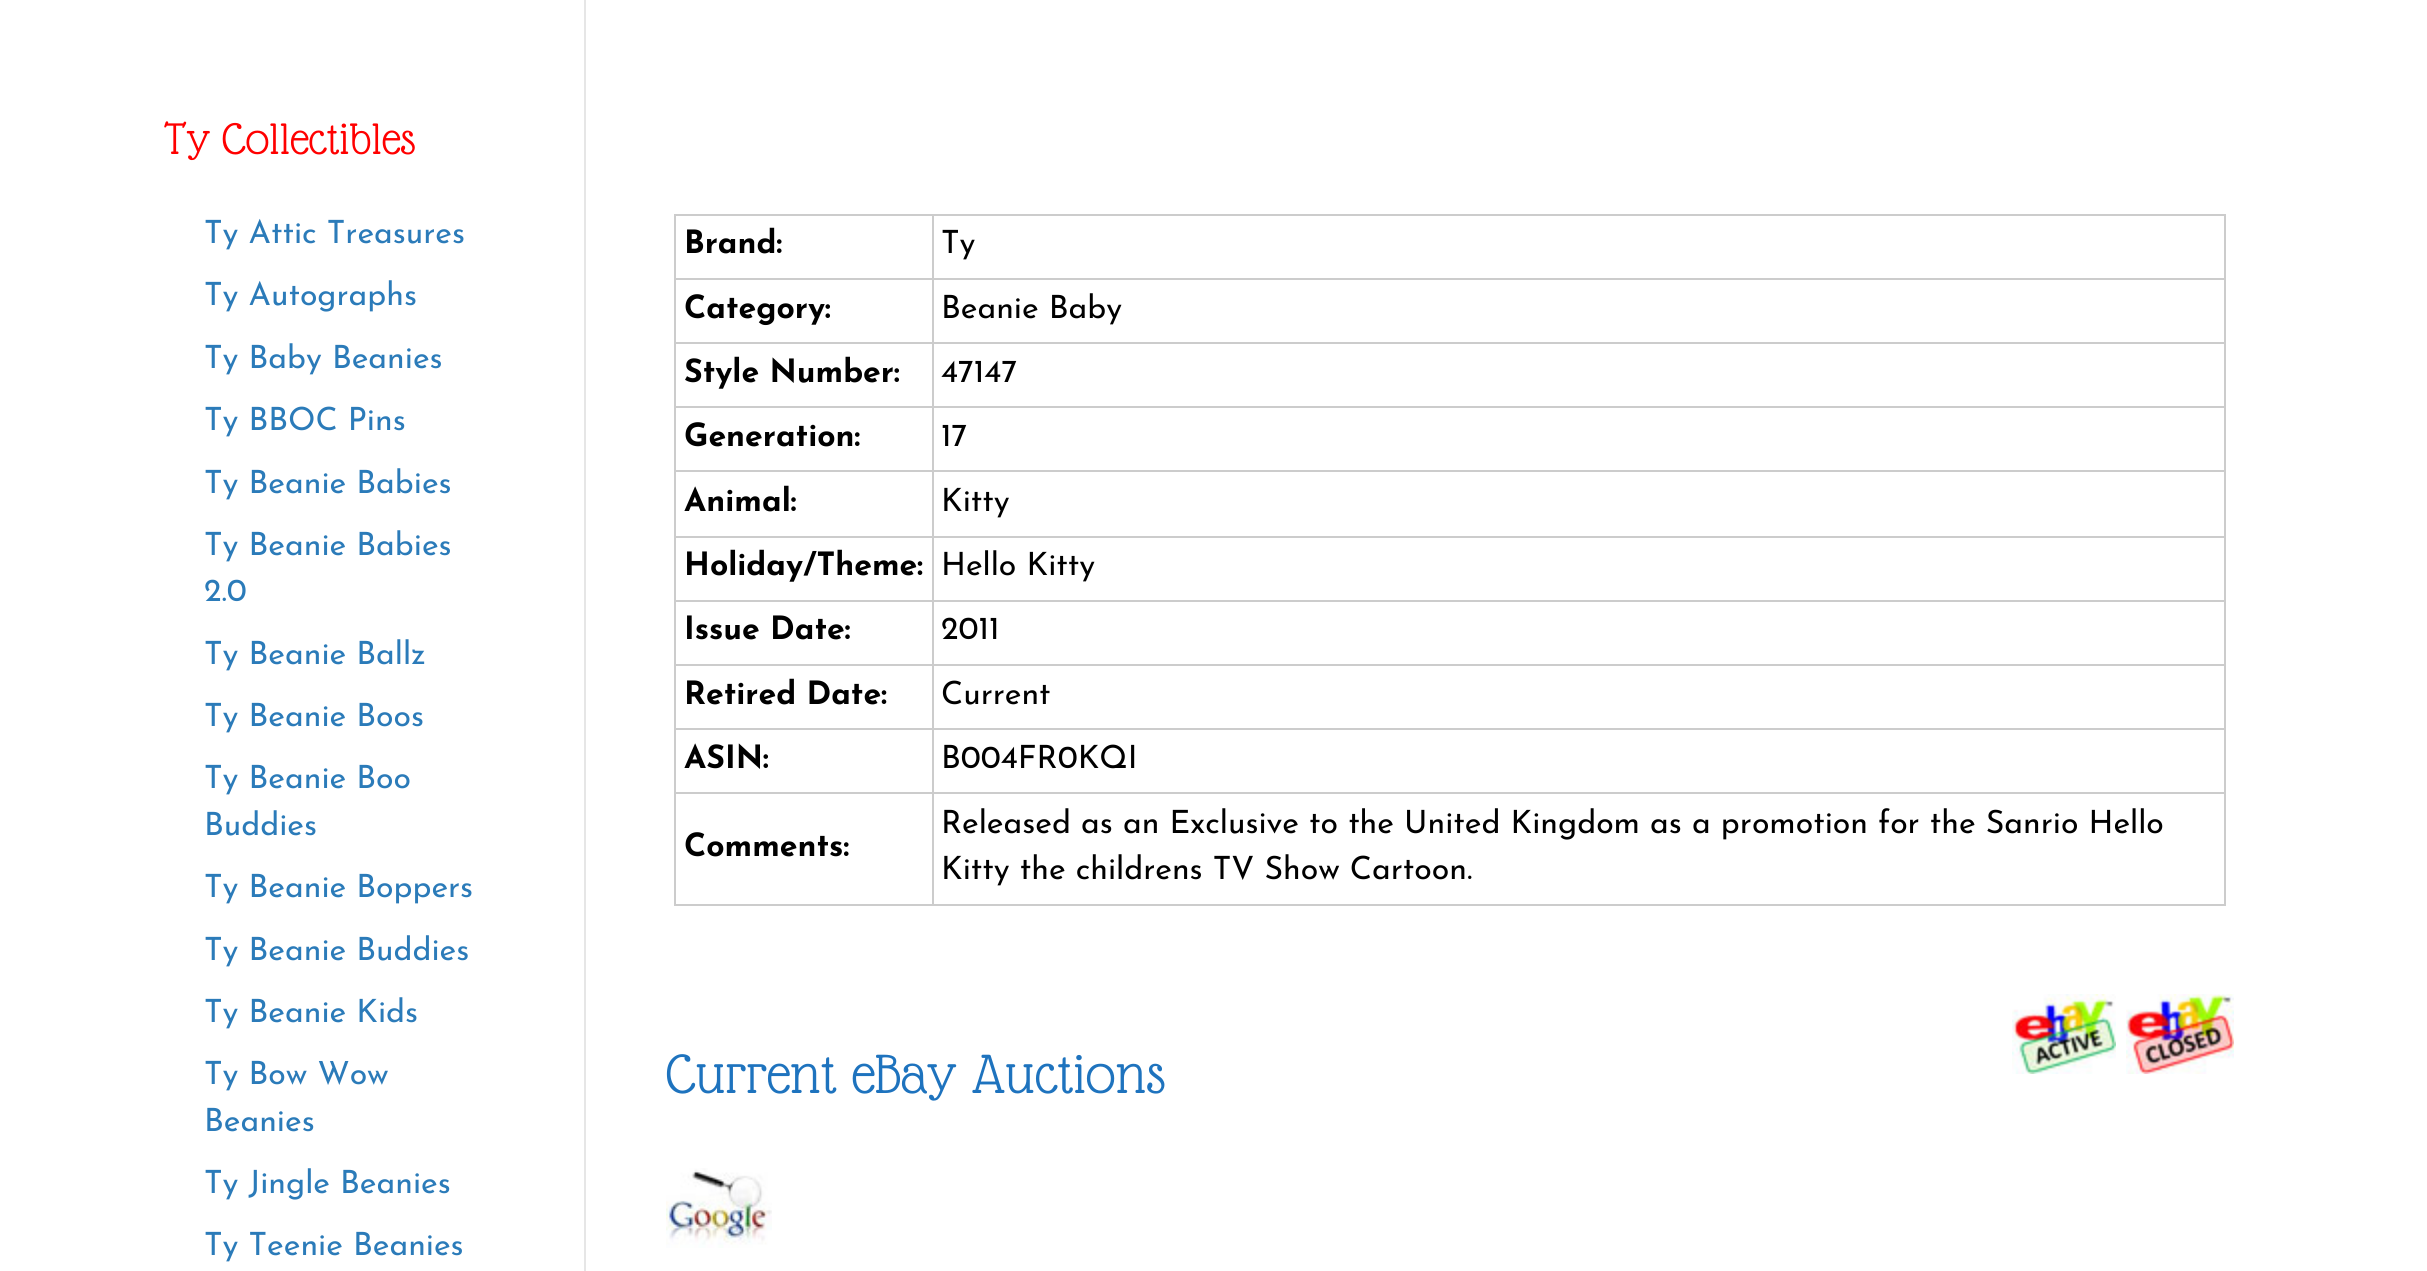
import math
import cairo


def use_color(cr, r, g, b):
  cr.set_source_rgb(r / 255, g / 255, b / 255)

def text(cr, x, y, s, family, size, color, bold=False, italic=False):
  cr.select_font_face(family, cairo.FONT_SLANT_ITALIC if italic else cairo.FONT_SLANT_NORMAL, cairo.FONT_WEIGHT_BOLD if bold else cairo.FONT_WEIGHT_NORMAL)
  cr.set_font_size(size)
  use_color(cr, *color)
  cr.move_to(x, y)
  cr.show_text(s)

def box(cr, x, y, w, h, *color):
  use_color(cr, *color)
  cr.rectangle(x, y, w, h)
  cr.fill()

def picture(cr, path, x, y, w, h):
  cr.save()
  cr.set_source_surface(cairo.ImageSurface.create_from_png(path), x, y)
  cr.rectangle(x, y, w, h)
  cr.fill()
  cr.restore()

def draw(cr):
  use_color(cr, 255, 255, 255)
  cr.paint()
  box(cr, 584, 0, 2, 1271, 230, 230, 230)
  box(cr, 674, 214, 1552, 2, 204, 204, 204)
  box(cr, 2224, 214, 2, 692, 204, 204, 204)
  box(cr, 674, 904, 1552, 2, 204, 204, 204)
  box(cr, 674, 214, 2, 692, 204, 204, 204)
  box(cr, 932, 278, 1294, 2, 204, 204, 204)
  box(cr, 932, 342, 1294, 2, 204, 204, 204)
  box(cr, 932, 406, 1294, 2, 204, 204, 204)
  box(cr, 932, 470, 1294, 2, 204, 204, 204)
  box(cr, 932, 536, 1294, 2, 204, 204, 204)
  box(cr, 932, 600, 1294, 2, 204, 204, 204)
  box(cr, 932, 664, 1294, 2, 204, 204, 204)
  box(cr, 932, 728, 1294, 2, 204, 204, 204)
  box(cr, 932, 792, 1294, 2, 204, 204, 204)
  box(cr, 932, 792, 2, 114, 204, 204, 204)
  box(cr, 674, 792, 260, 2, 204, 204, 204)
  box(cr, 932, 728, 2, 66, 204, 204, 204)
  box(cr, 674, 728, 260, 2, 204, 204, 204)
  box(cr, 932, 664, 2, 66, 204, 204, 204)
  box(cr, 674, 664, 260, 2, 204, 204, 204)
  box(cr, 932, 600, 2, 66, 204, 204, 204)
  box(cr, 674, 600, 260, 2, 204, 204, 204)
  box(cr, 932, 536, 2, 66, 204, 204, 204)
  box(cr, 674, 536, 260, 2, 204, 204, 204)
  box(cr, 932, 470, 2, 68, 204, 204, 204)
  box(cr, 674, 470, 260, 2, 204, 204, 204)
  box(cr, 932, 406, 2, 66, 204, 204, 204)
  box(cr, 674, 406, 260, 2, 204, 204, 204)
  box(cr, 932, 342, 2, 66, 204, 204, 204)
  box(cr, 674, 342, 260, 2, 204, 204, 204)
  box(cr, 932, 278, 2, 66, 204, 204, 204)
  box(cr, 674, 278, 260, 2, 204, 204, 204)
  box(cr, 932, 214, 2, 66, 204, 204, 204)
  picture(cr, "img_01.png", 2012, 994, 104, 80)
  picture(cr, "img_02.png", 2126, 994, 108, 80)
  picture(cr, "img_03.png", 666, 1168, 106, 80)
  text(cr, 164, 154, "Ty Collectibles", "Glass Antiqua", 48, (255, 0, 0))
  text(cr, 204, 243, "Ty Attic Treasures", "Josefin Sans", 32, (43, 123, 185))
  text(cr, 204, 305, "Ty Autographs", "Josefin Sans", 32, (43, 123, 185))
  text(cr, 204, 368, "Ty Baby Beanies", "Josefin Sans", 32, (43, 123, 185))
  text(cr, 204, 430, "Ty BBOC Pins", "Josefin Sans", 32, (43, 123, 185))
  text(cr, 204, 493, "Ty Beanie Babies", "Josefin Sans", 32, (43, 123, 185))
  text(cr, 204, 555, "Ty Beanie Babies", "Josefin Sans", 32, (43, 123, 185))
  text(cr, 204, 601, "2.0", "Josefin Sans", 32, (43, 123, 185))
  text(cr, 204, 664, "Ty Beanie Ballz", "Josefin Sans", 32, (43, 123, 185))
  text(cr, 204, 726, "Ty Beanie Boos", "Josefin Sans", 32, (43, 123, 185))
  text(cr, 204, 788, "Ty Beanie Boo", "Josefin Sans", 32, (43, 123, 185))
  text(cr, 204, 835, "Buddies", "Josefin Sans", 32, (43, 123, 185))
  text(cr, 204, 897, "Ty Beanie Boppers", "Josefin Sans", 32, (43, 123, 185))
  text(cr, 204, 960, "Ty Beanie Buddies", "Josefin Sans", 32, (43, 123, 185))
  text(cr, 204, 1022, "Ty Beanie Kids", "Josefin Sans", 32, (43, 123, 185))
  text(cr, 204, 1084, "Ty Bow Wow", "Josefin Sans", 32, (43, 123, 185))
  text(cr, 204, 1131, "Beanies", "Josefin Sans", 32, (43, 123, 185))
  text(cr, 204, 1193, "Ty Jingle Beanies", "Josefin Sans", 32, (43, 123, 185))
  text(cr, 204, 1255, "Ty Teenie Beanies", "Josefin Sans", 32, (43, 123, 185))
  text(cr, 684, 253, "Brand:", "Josefin Sans", 32, (0, 0, 0), bold=True)
  text(cr, 941, 253, "Ty", "Josefin Sans", 32, (0, 0, 0))
  text(cr, 684, 318, "Category:", "Josefin Sans", 32, (0, 0, 0), bold=True)
  text(cr, 941, 318, "Beanie Baby", "Josefin Sans", 32, (0, 0, 0))
  text(cr, 684, 382, "Style Number:", "Josefin Sans", 32, (0, 0, 0), bold=True)
  text(cr, 941, 382, "47147", "Josefin Sans", 32, (0, 0, 0))
  text(cr, 684, 446, "Generation:", "Josefin Sans", 32, (0, 0, 0), bold=True)
  text(cr, 941, 446, "17", "Josefin Sans", 32, (0, 0, 0))
  text(cr, 684, 511, "Animal:", "Josefin Sans", 32, (0, 0, 0), bold=True)
  text(cr, 941, 511, "Kitty", "Josefin Sans", 32, (0, 0, 0))
  text(cr, 684, 575, "Holiday/Theme:", "Josefin Sans", 32, (0, 0, 0), bold=True)
  text(cr, 941, 575, "Hello Kitty", "Josefin Sans", 32, (0, 0, 0))
  text(cr, 684, 639, "Issue Date:", "Josefin Sans", 32, (0, 0, 0), bold=True)
  text(cr, 941, 639, "2011", "Josefin Sans", 32, (0, 0, 0))
  text(cr, 684, 704, "Retired Date:", "Josefin Sans", 32, (0, 0, 0), bold=True)
  text(cr, 941, 704, "Current", "Josefin Sans", 32, (0, 0, 0))
  text(cr, 684, 768, "ASIN:", "Josefin Sans", 32, (0, 0, 0), bold=True)
  text(cr, 941, 768, "B004FR0KQI", "Josefin Sans", 32, (0, 0, 0))
  text(cr, 684, 856, "Comments:", "Josefin Sans", 32, (0, 0, 0), bold=True)
  text(cr, 941, 833, "Released as an Exclusive to the United Kingdom as a promotion for the Sanrio Hello", "Josefin Sans", 32, (0, 0, 0))
  text(cr, 941, 879, "Kitty the childrens TV Show Cartoon.", "Josefin Sans", 32, (0, 0, 0))
  text(cr, 666, 1093, "Current eBay Auctions", "Glass Antiqua", 60, (30, 115, 190))


surface = cairo.ImageSurface(cairo.FORMAT_RGB24, 2427, 1271)
cr = cairo.Context(surface)
options = cairo.FontOptions()
options.set_hint_metrics(cairo.HINT_METRICS_OFF)
options.set_hint_style(cairo.HINT_STYLE_NONE)
cr.set_font_options(options)
cr.set_miter_limit(4)
draw(cr)
surface.write_to_png("out.png")
